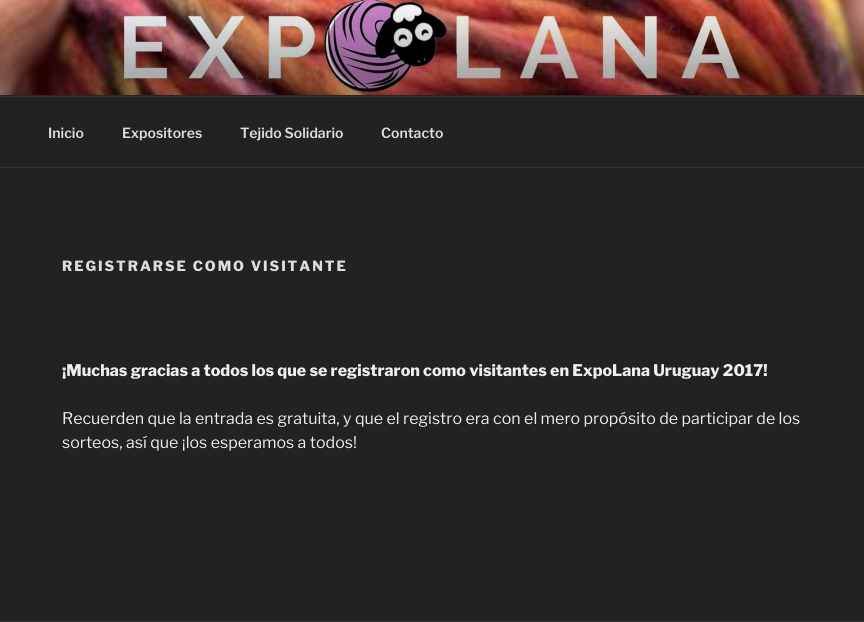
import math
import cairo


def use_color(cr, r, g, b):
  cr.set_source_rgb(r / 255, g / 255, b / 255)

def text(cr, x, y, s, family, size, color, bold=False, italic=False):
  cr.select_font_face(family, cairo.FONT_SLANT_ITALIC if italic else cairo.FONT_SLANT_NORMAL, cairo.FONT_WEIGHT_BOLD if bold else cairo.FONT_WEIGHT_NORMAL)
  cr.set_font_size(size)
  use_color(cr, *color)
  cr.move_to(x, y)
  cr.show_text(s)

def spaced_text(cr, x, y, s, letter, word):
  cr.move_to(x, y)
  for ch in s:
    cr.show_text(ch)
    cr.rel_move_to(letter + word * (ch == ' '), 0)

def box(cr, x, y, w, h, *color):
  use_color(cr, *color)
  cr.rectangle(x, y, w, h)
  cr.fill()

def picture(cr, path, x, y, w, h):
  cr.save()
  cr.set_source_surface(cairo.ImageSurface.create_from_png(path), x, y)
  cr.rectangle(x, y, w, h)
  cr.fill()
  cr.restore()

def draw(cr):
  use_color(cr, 34, 34, 34)
  cr.paint()
  box(cr, 0, 95, 864, 1, 38, 38, 38)
  picture(cr, "img_01.png", 0, 0, 864, 95)
  box(cr, 0, 96, 864, 1, 51, 51, 51)
  box(cr, 0, 167, 864, 1, 51, 51, 51)
  box(cr, 0, 621, 864, 1, 51, 51, 51)
  text(cr, 48, 138, "Inicio", "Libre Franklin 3 Thin", 14, (221, 221, 221))
  text(cr, 122, 138, "Expositores", "Libre Franklin 3 Thin", 14, (221, 221, 221))
  text(cr, 240, 138, "Tejido Solidario", "Libre Franklin 3 Thin", 14, (221, 221, 221))
  text(cr, 381, 138, "Contacto", "Libre Franklin 3 Thin", 14, (221, 221, 221))
  cr.select_font_face("Libre Franklin Thin")
  spaced_text(cr, 62, 271, "REGISTRARSE COMO VISITANTE", 1.95, 0)
  text(cr, 62, 376, "¡Muchas gracias a todos los que se registraron como visitantes en ExpoLana Uruguay 2017!", "Libre Franklin Thin", 16, (238, 238, 238))
  text(cr, 62, 424, "Recuerden que la entrada es gratuita, y que el registro era con el mero propósito de participar de los", "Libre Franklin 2 Thin", 16, (238, 238, 238))
  text(cr, 62, 448, "sorteos, así que ¡los esperamos a todos!", "Libre Franklin 2 Thin", 16, (238, 238, 238))


surface = cairo.ImageSurface(cairo.FORMAT_RGB24, 864, 622)
cr = cairo.Context(surface)
options = cairo.FontOptions()
options.set_hint_metrics(cairo.HINT_METRICS_OFF)
options.set_hint_style(cairo.HINT_STYLE_NONE)
cr.set_font_options(options)
cr.set_miter_limit(4)
draw(cr)
surface.write_to_png("out.png")
